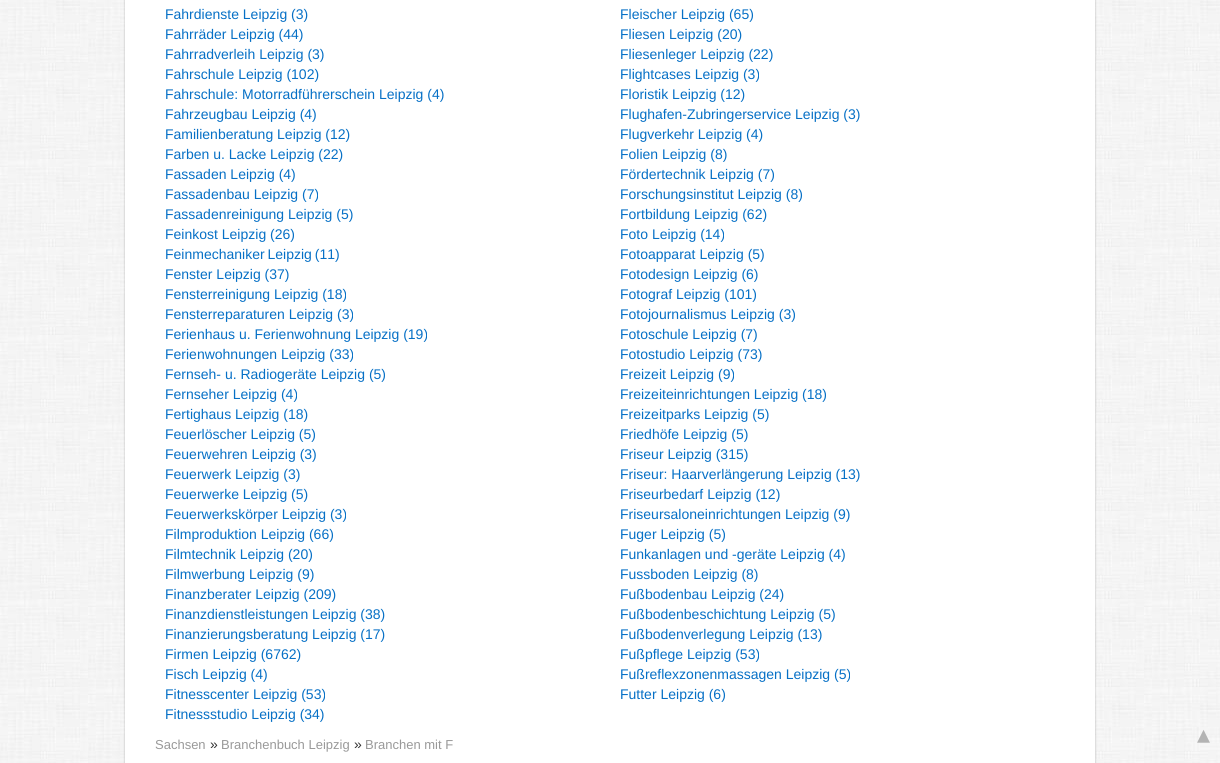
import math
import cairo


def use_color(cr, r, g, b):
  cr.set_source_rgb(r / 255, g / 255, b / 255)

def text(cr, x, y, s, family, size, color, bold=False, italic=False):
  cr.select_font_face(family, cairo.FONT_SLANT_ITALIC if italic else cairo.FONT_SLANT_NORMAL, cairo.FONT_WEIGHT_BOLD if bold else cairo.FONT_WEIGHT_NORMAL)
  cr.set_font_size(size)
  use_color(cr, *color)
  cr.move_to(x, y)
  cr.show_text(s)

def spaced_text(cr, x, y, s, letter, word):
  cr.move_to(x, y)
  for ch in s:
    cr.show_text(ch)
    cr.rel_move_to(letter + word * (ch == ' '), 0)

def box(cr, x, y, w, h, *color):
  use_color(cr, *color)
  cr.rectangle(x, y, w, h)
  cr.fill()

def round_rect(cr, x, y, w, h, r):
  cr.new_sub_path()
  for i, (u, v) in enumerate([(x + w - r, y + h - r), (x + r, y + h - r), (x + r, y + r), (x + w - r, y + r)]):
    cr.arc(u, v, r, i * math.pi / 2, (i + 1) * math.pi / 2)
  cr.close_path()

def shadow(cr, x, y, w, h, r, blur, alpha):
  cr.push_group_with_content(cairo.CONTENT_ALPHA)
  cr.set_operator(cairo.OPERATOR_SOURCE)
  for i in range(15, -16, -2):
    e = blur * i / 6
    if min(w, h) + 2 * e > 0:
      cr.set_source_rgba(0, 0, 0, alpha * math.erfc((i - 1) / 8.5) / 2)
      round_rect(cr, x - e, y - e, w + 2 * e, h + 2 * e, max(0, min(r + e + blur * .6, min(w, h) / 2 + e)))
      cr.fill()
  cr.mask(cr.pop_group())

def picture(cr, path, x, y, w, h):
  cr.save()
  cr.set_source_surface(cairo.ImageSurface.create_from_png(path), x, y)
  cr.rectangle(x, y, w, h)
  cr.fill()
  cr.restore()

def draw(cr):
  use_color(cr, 255, 255, 255)
  cr.paint()
  picture(cr, "img_01.png", 0, 0, 1220, 763)
  use_color(cr, 0, 0, 0)
  shadow(cr, 125, -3, 970, 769, 0, 1, 0.12)
  shadow(cr, 125, -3, 970, 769, 0, 1, 0.16)
  box(cr, 125, 0, 970, 763, 255, 255, 255)
  text(cr, 165, 19, "Fahrdienste Leipzig (3)", "Liberation Sans", 14, (6, 112, 198))
  text(cr, 165, 39, "Fahrräder Leipzig (44)", "Liberation Sans", 14, (6, 112, 198))
  text(cr, 165, 59, "Fahrradverleih Leipzig (3)", "Liberation Sans", 14, (6, 112, 198))
  text(cr, 165, 79, "Fahrschule Leipzig (102)", "Liberation Sans", 14, (6, 112, 198))
  text(cr, 165, 99, "Fahrschule: Motorradführerschein Leipzig (4)", "Liberation Sans", 14, (6, 112, 198))
  text(cr, 165, 119, "Fahrzeugbau Leipzig (4)", "Liberation Sans", 14, (6, 112, 198))
  text(cr, 165, 139, "Familienberatung Leipzig (12)", "Liberation Sans", 14, (6, 112, 198))
  text(cr, 165, 159, "Farben u. Lacke Leipzig (22)", "Liberation Sans", 14, (6, 112, 198))
  text(cr, 165, 179, "Fassaden Leipzig (4)", "Liberation Sans", 14, (6, 112, 198))
  text(cr, 165, 199, "Fassadenbau Leipzig (7)", "Liberation Sans", 14, (6, 112, 198))
  text(cr, 165, 219, "Fassadenreinigung Leipzig (5)", "Liberation Sans", 14, (6, 112, 198))
  text(cr, 165, 239, "Feinkost Leipzig (26)", "Liberation Sans", 14, (6, 112, 198))
  spaced_text(cr, 165, 259, "Feinmechaniker Leipzig (11)", 0, -1)
  text(cr, 165, 279, "Fenster Leipzig (37)", "Liberation Sans", 14, (6, 112, 198))
  text(cr, 165, 299, "Fensterreinigung Leipzig (18)", "Liberation Sans", 14, (6, 112, 198))
  text(cr, 165, 319, "Fensterreparaturen Leipzig (3)", "Liberation Sans", 14, (6, 112, 198))
  text(cr, 165, 339, "Ferienhaus u. Ferienwohnung Leipzig (19)", "Liberation Sans", 14, (6, 112, 198))
  text(cr, 165, 359, "Ferienwohnungen Leipzig (33)", "Liberation Sans", 14, (6, 112, 198))
  text(cr, 165, 379, "Fernseh- u. Radiogeräte Leipzig (5)", "Liberation Sans", 14, (6, 112, 198))
  text(cr, 165, 399, "Fernseher Leipzig (4)", "Liberation Sans", 14, (6, 112, 198))
  text(cr, 165, 419, "Fertighaus Leipzig (18)", "Liberation Sans", 14, (6, 112, 198))
  text(cr, 165, 439, "Feuerlöscher Leipzig (5)", "Liberation Sans", 14, (6, 112, 198))
  text(cr, 165, 459, "Feuerwehren Leipzig (3)", "Liberation Sans", 14, (6, 112, 198))
  text(cr, 165, 479, "Feuerwerk Leipzig (3)", "Liberation Sans", 14, (6, 112, 198))
  text(cr, 165, 499, "Feuerwerke Leipzig (5)", "Liberation Sans", 14, (6, 112, 198))
  text(cr, 165, 519, "Feuerwerkskörper Leipzig (3)", "Liberation Sans", 14, (6, 112, 198))
  text(cr, 165, 539, "Filmproduktion Leipzig (66)", "Liberation Sans", 14, (6, 112, 198))
  text(cr, 165, 559, "Filmtechnik Leipzig (20)", "Liberation Sans", 14, (6, 112, 198))
  text(cr, 165, 579, "Filmwerbung Leipzig (9)", "Liberation Sans", 14, (6, 112, 198))
  text(cr, 165, 599, "Finanzberater Leipzig (209)", "Liberation Sans", 14, (6, 112, 198))
  text(cr, 165, 619, "Finanzdienstleistungen Leipzig (38)", "Liberation Sans", 14, (6, 112, 198))
  text(cr, 165, 639, "Finanzierungsberatung Leipzig (17)", "Liberation Sans", 14, (6, 112, 198))
  text(cr, 165, 659, "Firmen Leipzig (6762)", "Liberation Sans", 14, (6, 112, 198))
  text(cr, 165, 679, "Fisch Leipzig (4)", "Liberation Sans", 14, (6, 112, 198))
  text(cr, 165, 699, "Fitnesscenter Leipzig (53)", "Liberation Sans", 14, (6, 112, 198))
  text(cr, 165, 719, "Fitnessstudio Leipzig (34)", "Liberation Sans", 14, (6, 112, 198))
  text(cr, 620, 19, "Fleischer Leipzig (65)", "Liberation Sans", 14, (6, 112, 198))
  text(cr, 620, 39, "Fliesen Leipzig (20)", "Liberation Sans", 14, (6, 112, 198))
  text(cr, 620, 59, "Fliesenleger Leipzig (22)", "Liberation Sans", 14, (6, 112, 198))
  text(cr, 620, 79, "Flightcases Leipzig (3)", "Liberation Sans", 14, (6, 112, 198))
  text(cr, 620, 99, "Floristik Leipzig (12)", "Liberation Sans", 14, (6, 112, 198))
  text(cr, 620, 119, "Flughafen-Zubringerservice Leipzig (3)", "Liberation Sans", 14, (6, 112, 198))
  text(cr, 620, 139, "Flugverkehr Leipzig (4)", "Liberation Sans", 14, (6, 112, 198))
  text(cr, 620, 159, "Folien Leipzig (8)", "Liberation Sans", 14, (6, 112, 198))
  text(cr, 620, 179, "Fördertechnik Leipzig (7)", "Liberation Sans", 14, (6, 112, 198))
  text(cr, 620, 199, "Forschungsinstitut Leipzig (8)", "Liberation Sans", 14, (6, 112, 198))
  text(cr, 620, 219, "Fortbildung Leipzig (62)", "Liberation Sans", 14, (6, 112, 198))
  text(cr, 620, 239, "Foto Leipzig (14)", "Liberation Sans", 14, (6, 112, 198))
  text(cr, 620, 259, "Fotoapparat Leipzig (5)", "Liberation Sans", 14, (6, 112, 198))
  text(cr, 620, 279, "Fotodesign Leipzig (6)", "Liberation Sans", 14, (6, 112, 198))
  text(cr, 620, 299, "Fotograf Leipzig (101)", "Liberation Sans", 14, (6, 112, 198))
  text(cr, 620, 319, "Fotojournalismus Leipzig (3)", "Liberation Sans", 14, (6, 112, 198))
  text(cr, 620, 339, "Fotoschule Leipzig (7)", "Liberation Sans", 14, (6, 112, 198))
  text(cr, 620, 359, "Fotostudio Leipzig (73)", "Liberation Sans", 14, (6, 112, 198))
  text(cr, 620, 379, "Freizeit Leipzig (9)", "Liberation Sans", 14, (6, 112, 198))
  text(cr, 620, 399, "Freizeiteinrichtungen Leipzig (18)", "Liberation Sans", 14, (6, 112, 198))
  text(cr, 620, 419, "Freizeitparks Leipzig (5)", "Liberation Sans", 14, (6, 112, 198))
  text(cr, 620, 439, "Friedhöfe Leipzig (5)", "Liberation Sans", 14, (6, 112, 198))
  text(cr, 620, 459, "Friseur Leipzig (315)", "Liberation Sans", 14, (6, 112, 198))
  text(cr, 620, 479, "Friseur: Haarverlängerung Leipzig (13)", "Liberation Sans", 14, (6, 112, 198))
  text(cr, 620, 499, "Friseurbedarf Leipzig (12)", "Liberation Sans", 14, (6, 112, 198))
  text(cr, 620, 519, "Friseursaloneinrichtungen Leipzig (9)", "Liberation Sans", 14, (6, 112, 198))
  text(cr, 620, 539, "Fuger Leipzig (5)", "Liberation Sans", 14, (6, 112, 198))
  text(cr, 620, 559, "Funkanlagen und -geräte Leipzig (4)", "Liberation Sans", 14, (6, 112, 198))
  text(cr, 620, 579, "Fussboden Leipzig (8)", "Liberation Sans", 14, (6, 112, 198))
  text(cr, 620, 599, "Fußbodenbau Leipzig (24)", "Liberation Sans", 14, (6, 112, 198))
  text(cr, 620, 619, "Fußbodenbeschichtung Leipzig (5)", "Liberation Sans", 14, (6, 112, 198))
  text(cr, 620, 639, "Fußbodenverlegung Leipzig (13)", "Liberation Sans", 14, (6, 112, 198))
  text(cr, 620, 659, "Fußpflege Leipzig (53)", "Liberation Sans", 14, (6, 112, 198))
  text(cr, 620, 679, "Fußreflexzonenmassagen Leipzig (5)", "Liberation Sans", 14, (6, 112, 198))
  text(cr, 620, 699, "Futter Leipzig (6)", "Liberation Sans", 14, (6, 112, 198))
  text(cr, 155, 749, "Sachsen", "Liberation Sans", 13, (153, 153, 153))
  text(cr, 210, 749, "»", "Liberation Sans", 14, (51, 51, 51))
  text(cr, 221, 749, "Branchenbuch Leipzig", "Liberation Sans", 13, (153, 153, 153))
  text(cr, 354, 749, "»", "Liberation Sans", 14, (51, 51, 51))
  text(cr, 365, 749, "Branchen mit F", "Liberation Sans", 13, (153, 153, 153))
  text(cr, 1197, 743, "▴", "DejaVu Sans", 26, (179, 179, 179))


surface = cairo.ImageSurface(cairo.FORMAT_RGB24, 1220, 763)
cr = cairo.Context(surface)
options = cairo.FontOptions()
options.set_hint_metrics(cairo.HINT_METRICS_OFF)
options.set_hint_style(cairo.HINT_STYLE_NONE)
cr.set_font_options(options)
cr.set_miter_limit(4)
draw(cr)
surface.write_to_png("out.png")
